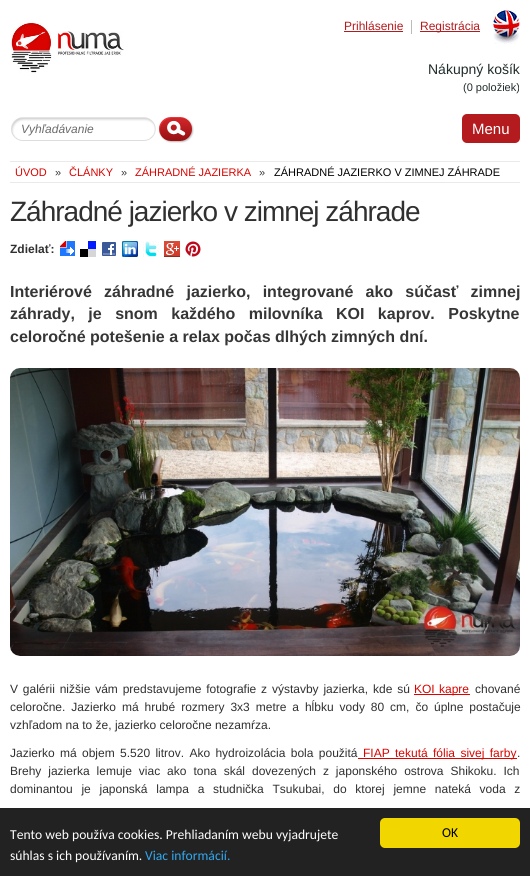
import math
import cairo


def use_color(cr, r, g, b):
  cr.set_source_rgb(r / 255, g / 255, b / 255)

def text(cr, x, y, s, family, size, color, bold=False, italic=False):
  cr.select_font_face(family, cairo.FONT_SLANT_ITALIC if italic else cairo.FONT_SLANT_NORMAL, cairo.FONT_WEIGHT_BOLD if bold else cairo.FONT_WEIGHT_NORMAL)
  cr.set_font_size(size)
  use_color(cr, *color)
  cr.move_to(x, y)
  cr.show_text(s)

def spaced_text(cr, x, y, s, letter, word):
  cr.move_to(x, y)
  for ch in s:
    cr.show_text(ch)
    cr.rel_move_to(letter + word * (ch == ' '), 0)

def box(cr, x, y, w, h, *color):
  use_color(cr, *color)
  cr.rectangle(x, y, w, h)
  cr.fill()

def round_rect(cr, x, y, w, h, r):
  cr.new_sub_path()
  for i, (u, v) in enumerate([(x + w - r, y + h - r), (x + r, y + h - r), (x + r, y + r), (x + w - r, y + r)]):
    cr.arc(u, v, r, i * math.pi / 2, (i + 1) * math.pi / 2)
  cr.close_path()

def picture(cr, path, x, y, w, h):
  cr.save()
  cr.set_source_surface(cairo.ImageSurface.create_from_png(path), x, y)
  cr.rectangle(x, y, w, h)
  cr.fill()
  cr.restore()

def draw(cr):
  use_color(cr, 255, 255, 255)
  cr.paint()
  picture(cr, "img_01.png", 10, 22, 114, 51)
  box(cr, 344, 31, 59, 1, 180, 27, 30)
  box(cr, 411, 20, 1, 14, 187, 187, 187)
  box(cr, 420, 31, 60, 1, 180, 27, 30)
  picture(cr, "img_02.png", 493, 10, 27, 34)
  picture(cr, "img_03.png", 11, 117, 145, 24)
  picture(cr, "img_04.png", 159, 117, 35, 26)
  round_rect(cr, 462, 114, 58, 29, 5)
  cr.fill()
  box(cr, 10, 161, 510, 1, 234, 234, 234)
  box(cr, 10, 182, 510, 1, 234, 234, 234)
  picture(cr, "img_05.png", 60, 241, 15, 15)
  picture(cr, "img_06.png", 80, 241, 16, 16)
  picture(cr, "img_07.png", 102, 242, 14, 14)
  picture(cr, "img_08.png", 122, 241, 16, 16)
  picture(cr, "img_09.png", 143, 241, 16, 16)
  picture(cr, "img_10.png", 164, 241, 16, 16)
  picture(cr, "img_11.png", 185, 241, 16, 16)
  picture(cr, "img_12.png", 10, 368, 510, 288)
  box(cr, 414, 694, 56, 1, 217, 4, 0)
  box(cr, 358, 758, 159, 1, 217, 4, 0)
  box(cr, 0, 808, 530, 68, 34, 34, 34)
  use_color(cr, 241, 214, 0)
  round_rect(cr, 380, 818, 140, 30, 5)
  cr.fill()
  text(cr, 344, 30, "Prihlásenie", "Liberation Sans", 12, (180, 27, 30))
  text(cr, 420, 30, "Registrácia", "Liberation Sans", 12, (180, 27, 30))
  text(cr, 428, 74, "Nákupný košík", "Liberation Sans", 14, (33, 44, 43))
  text(cr, 463, 91, "(0 položiek)", "Liberation Sans", 11, (33, 44, 43))
  text(cr, 21, 133, "Vyhľadávanie", "Liberation Sans", 12, (107, 107, 107), italic=True)
  text(cr, 472, 134, "Menu", "Liberation Sans", 15, (255, 255, 255))
  text(cr, 15, 176, "ÚVOD", "Liberation Sans", 11, (217, 4, 0))
  text(cr, 55, 176, "»", "Liberation Sans", 11, (54, 54, 54))
  text(cr, 69, 176, "ČLÁNKY", "Liberation Sans", 11, (217, 4, 0))
  text(cr, 121, 176, "»", "Liberation Sans", 11, (54, 54, 54))
  text(cr, 135, 176, "ZÁHRADNÉ JAZIERKA", "Liberation Sans", 11, (217, 4, 0))
  text(cr, 259, 176, "»", "Liberation Sans", 11, (54, 54, 54))
  text(cr, 274, 176, "ZÁHRADNÉ JAZIERKO V ZIMNEJ ZÁHRADE", "Liberation Sans", 11, (0, 0, 0))
  cr.set_font_size(28)
  use_color(cr, 48, 48, 48)
  spaced_text(cr, 10, 221, "Záhradné jazierko v zimnej záhrade", -1, 0)
  text(cr, 10, 253, "Zdielať:", "Liberation Sans", 12, (48, 48, 48), bold=True)
  cr.set_font_size(16)
  use_color(cr, 54, 54, 54)
  spaced_text(cr, 10, 297, "Interiérové záhradné jazierko, integrované ako súčasť zimnej", 0, 7.75)
  spaced_text(cr, 10, 319, "záhrady, je snom každého milovníka KOI kaprov. Poskytne", 0, 9)
  text(cr, 10, 342, "celoročné potešenie a relax počas dlhých zimných dní.", "Liberation Sans", 16, (54, 54, 54), bold=True)
  cr.select_font_face("Liberation Sans")
  cr.set_font_size(12)
  use_color(cr, 48, 48, 48)
  spaced_text(cr, 10, 693, "V galérii nižšie vám predstavujeme fotografie z výstavby jazierka, kde sú", 0, 1.5)
  use_color(cr, 217, 4, 0)
  spaced_text(cr, 414, 693, "KOI kapre", 0, 1)
  text(cr, 475, 693, "chované", "Liberation Sans", 12, (48, 48, 48))
  spaced_text(cr, 10, 711, "celoročne. Jazierko má hrubé rozmery 3x3 metre a hĺbku vody 80 cm, čo úplne postačuje", 0, 2.6)
  text(cr, 10, 729, "vzhľadom na to že, jazierko celoročne nezamŕza.", "Liberation Sans", 12, (48, 48, 48))
  spaced_text(cr, 10, 757, "Jazierko má objem 5.520 litrov. Ako hydroizolácia bola použitá", 0, 2)
  use_color(cr, 217, 4, 0)
  spaced_text(cr, 363, 757, "FIAP tekutá fólia sivej farby", 0, 2)
  text(cr, 517, 757, ".", "Liberation Sans", 12, (48, 48, 48))
  spaced_text(cr, 10, 775, "Brehy jazierka lemuje viac ako tona skál dovezených z japonského ostrova Shikoku. Ich", 0, 3.6)
  spaced_text(cr, 10, 793, "dominantou je japonská lampa a studnička Tsukubai, do ktorej jemne nateká voda z", 0, 5.4)
  text(cr, 10, 839, "Tento web používa cookies. Prehliadaním webu vyjadrujete", "Carlito", 13.6, (255, 255, 255))
  text(cr, 10, 860, "súhlas s ich používaním.", "Carlito", 13.6, (255, 255, 255))
  text(cr, 145, 860, "Viac informácií.", "Carlito", 13.6, (49, 168, 240))
  text(cr, 442, 837, "OK", "Carlito", 13.6, (0, 0, 0))


surface = cairo.ImageSurface(cairo.FORMAT_RGB24, 530, 876)
cr = cairo.Context(surface)
options = cairo.FontOptions()
options.set_hint_metrics(cairo.HINT_METRICS_OFF)
options.set_hint_style(cairo.HINT_STYLE_NONE)
cr.set_font_options(options)
cr.set_miter_limit(4)
draw(cr)
surface.write_to_png("out.png")
